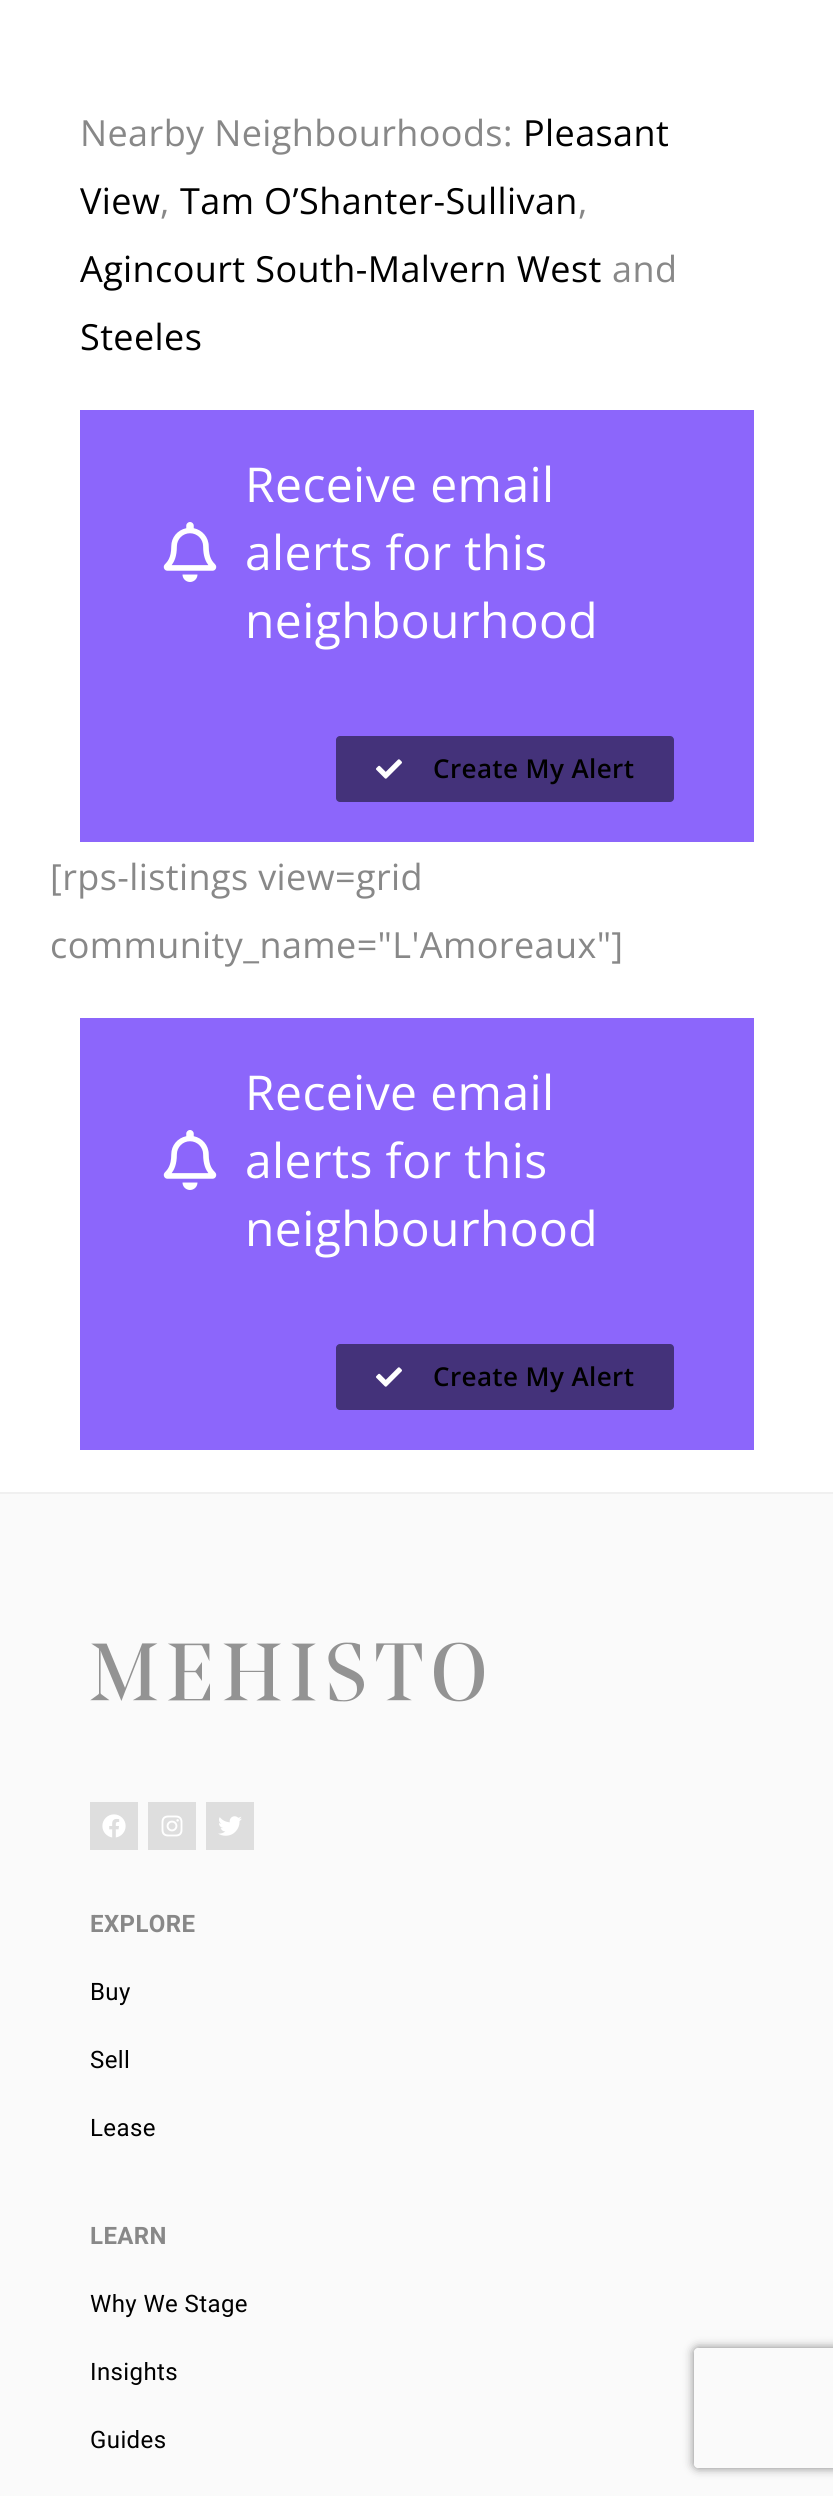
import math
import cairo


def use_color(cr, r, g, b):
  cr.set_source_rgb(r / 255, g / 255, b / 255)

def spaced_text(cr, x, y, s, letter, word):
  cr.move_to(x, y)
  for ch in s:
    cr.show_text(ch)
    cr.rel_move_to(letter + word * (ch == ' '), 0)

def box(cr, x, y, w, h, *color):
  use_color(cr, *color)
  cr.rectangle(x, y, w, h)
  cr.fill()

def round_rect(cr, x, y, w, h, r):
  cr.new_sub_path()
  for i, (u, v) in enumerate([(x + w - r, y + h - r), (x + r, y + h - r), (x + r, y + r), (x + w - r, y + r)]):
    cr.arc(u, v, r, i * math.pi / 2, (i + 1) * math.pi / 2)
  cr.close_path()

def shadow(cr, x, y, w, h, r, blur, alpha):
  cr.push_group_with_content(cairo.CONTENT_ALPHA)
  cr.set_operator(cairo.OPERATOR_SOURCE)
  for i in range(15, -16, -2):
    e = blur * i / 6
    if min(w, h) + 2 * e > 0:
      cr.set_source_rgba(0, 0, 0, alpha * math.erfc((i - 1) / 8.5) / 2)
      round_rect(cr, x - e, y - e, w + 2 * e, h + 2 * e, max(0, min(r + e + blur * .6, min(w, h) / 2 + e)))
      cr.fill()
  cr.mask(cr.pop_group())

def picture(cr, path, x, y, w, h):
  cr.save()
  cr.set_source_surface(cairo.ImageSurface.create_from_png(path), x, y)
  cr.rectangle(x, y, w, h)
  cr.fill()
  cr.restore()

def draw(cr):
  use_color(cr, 255, 255, 255)
  cr.paint()
  box(cr, 80, 410, 674, 432, 140, 102, 251)
  picture(cr, "img_01.png", 163, 522, 54, 60)
  use_color(cr, 68, 50, 122)
  round_rect(cr, 336, 736, 338, 66, 4)
  cr.fill()
  picture(cr, "img_02.png", 376, 759, 26, 20)
  box(cr, 80, 1018, 674, 432, 140, 102, 251)
  picture(cr, "img_01.png", 163, 1130, 54, 60)
  use_color(cr, 68, 50, 122)
  round_rect(cr, 336, 1344, 338, 66, 4)
  cr.fill()
  picture(cr, "img_02.png", 376, 1367, 26, 20)
  box(cr, 0, 1494, 833, 1002, 250, 250, 250)
  box(cr, 0, 1492, 833, 2, 240, 240, 240)
  picture(cr, "img_03.png", 90, 1642, 394, 60)
  box(cr, 90, 1802, 48, 48, 222, 222, 222)
  picture(cr, "img_04.png", 102, 1814, 24, 24)
  box(cr, 148, 1802, 48, 48, 222, 222, 222)
  picture(cr, "img_05.png", 161, 1815, 22, 22)
  box(cr, 206, 1802, 48, 48, 222, 222, 222)
  picture(cr, "img_06.png", 218, 1816, 24, 20)
  cr.save()
  cr.set_fill_rule(cairo.FILL_RULE_EVEN_ODD)
  cr.new_path()
  cr.move_to(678, 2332)
  cr.line_to(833, 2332)
  cr.line_to(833, 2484)
  cr.line_to(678, 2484)
  cr.close_path()
  cr.move_to(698, 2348)
  cr.line_to(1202, 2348)
  cr.curve_to(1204, 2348, 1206, 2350, 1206, 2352)
  cr.line_to(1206, 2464)
  cr.curve_to(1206, 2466, 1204, 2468, 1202, 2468)
  cr.line_to(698, 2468)
  cr.curve_to(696, 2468, 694, 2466, 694, 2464)
  cr.line_to(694, 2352)
  cr.curve_to(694, 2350, 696, 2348, 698, 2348)
  cr.close_path()
  cr.clip()
  use_color(cr, 128, 128, 128)
  shadow(cr, 694, 2348, 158, 120, 4, 5, 1)
  cr.restore()
  cr.select_font_face("Open Sans")
  cr.set_font_size(36)
  use_color(cr, 136, 136, 136)
  spaced_text(cr, 80, 146, "Nearby Neighbourhoods:", 0.4, 0)
  use_color(cr, 0, 0, 0)
  spaced_text(cr, 523, 146, "Pleasant", 0.4, 0)
  spaced_text(cr, 80, 214, "View", 0.4, 0)
  use_color(cr, 136, 136, 136)
  spaced_text(cr, 160, 214, ",", 0.4, 0)
  use_color(cr, 0, 0, 0)
  spaced_text(cr, 180, 214, "Tam O’Shanter-Sullivan", 0.4, 0)
  use_color(cr, 136, 136, 136)
  spaced_text(cr, 578, 214, ",", 0.4, 0)
  use_color(cr, 0, 0, 0)
  spaced_text(cr, 80, 282, "Agincourt South-Malvern West", 0.4, 0)
  use_color(cr, 136, 136, 136)
  spaced_text(cr, 612, 282, "and", 0.4, 0)
  use_color(cr, 0, 0, 0)
  spaced_text(cr, 80, 350, "Steeles", 0.4, 0)
  cr.set_font_size(48)
  use_color(cr, 255, 255, 255)
  spaced_text(cr, 245, 502, "Receive email", 0.4, 0)
  spaced_text(cr, 245, 570, "alerts for this", 0.4, 0)
  spaced_text(cr, 245, 638, "neighbourhood", 0.4, 0)
  cr.select_font_face("Open Sans SemiBold")
  cr.set_font_size(26)
  use_color(cr, 0, 0, 0)
  spaced_text(cr, 433, 778, "Create My Alert", 0.4, 0)
  cr.select_font_face("Open Sans")
  cr.set_font_size(36)
  use_color(cr, 136, 136, 136)
  spaced_text(cr, 50, 890, "[rps-listings view=grid", 0.4, 0)
  spaced_text(cr, 50, 958, "community_name=\"L'Amoreaux\"]", 0.4, 0)
  cr.set_font_size(48)
  use_color(cr, 255, 255, 255)
  spaced_text(cr, 245, 1110, "Receive email", 0.4, 0)
  spaced_text(cr, 245, 1178, "alerts for this", 0.4, 0)
  spaced_text(cr, 245, 1246, "neighbourhood", 0.4, 0)
  cr.select_font_face("Open Sans SemiBold")
  cr.set_font_size(26)
  use_color(cr, 0, 0, 0)
  spaced_text(cr, 433, 1386, "Create My Alert", 0.4, 0)
  cr.select_font_face("Roboto", cairo.FONT_SLANT_NORMAL, cairo.FONT_WEIGHT_BOLD)
  cr.set_font_size(24)
  use_color(cr, 136, 136, 136)
  spaced_text(cr, 90, 1932, "EXPLORE", 0.4, 0)
  cr.select_font_face("Roboto")
  use_color(cr, 0, 0, 0)
  spaced_text(cr, 90, 2000, "Buy", 0.4, 0)
  spaced_text(cr, 90, 2068, "Sell", 0.4, 0)
  spaced_text(cr, 90, 2136, "Lease", 0.4, 0)
  cr.select_font_face("Roboto", cairo.FONT_SLANT_NORMAL, cairo.FONT_WEIGHT_BOLD)
  use_color(cr, 136, 136, 136)
  spaced_text(cr, 90, 2244, "LEARN", 0.4, 0)
  cr.select_font_face("Roboto")
  use_color(cr, 0, 0, 0)
  spaced_text(cr, 90, 2312, "Why We Stage", 0.4, 0)
  spaced_text(cr, 90, 2380, "Insights", 0.4, 0)
  spaced_text(cr, 90, 2448, "Guides", 0.4, 0)


surface = cairo.ImageSurface(cairo.FORMAT_RGB24, 833, 2496)
cr = cairo.Context(surface)
options = cairo.FontOptions()
options.set_hint_metrics(cairo.HINT_METRICS_OFF)
options.set_hint_style(cairo.HINT_STYLE_NONE)
cr.set_font_options(options)
cr.set_miter_limit(4)
draw(cr)
surface.write_to_png("out.png")
